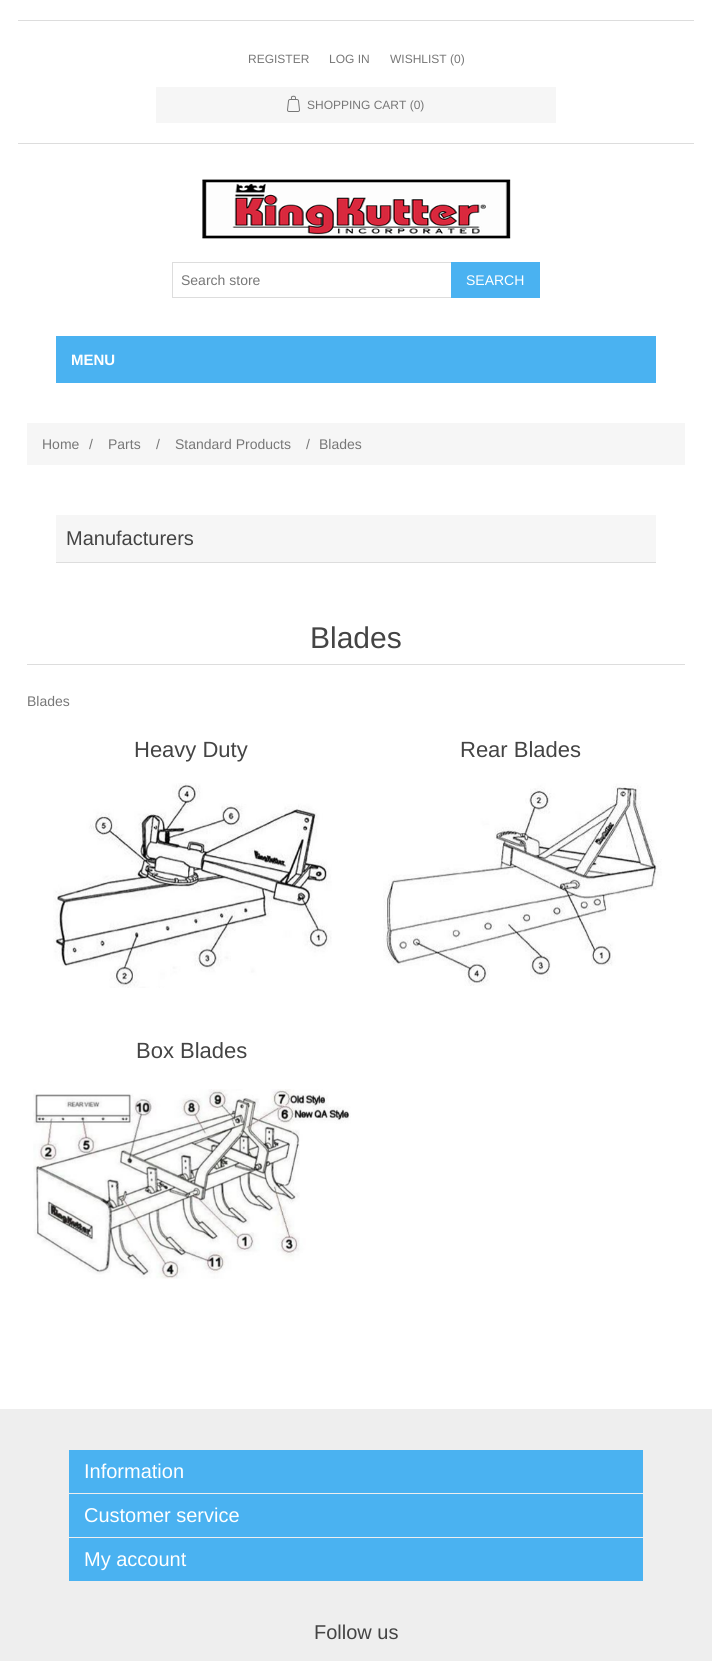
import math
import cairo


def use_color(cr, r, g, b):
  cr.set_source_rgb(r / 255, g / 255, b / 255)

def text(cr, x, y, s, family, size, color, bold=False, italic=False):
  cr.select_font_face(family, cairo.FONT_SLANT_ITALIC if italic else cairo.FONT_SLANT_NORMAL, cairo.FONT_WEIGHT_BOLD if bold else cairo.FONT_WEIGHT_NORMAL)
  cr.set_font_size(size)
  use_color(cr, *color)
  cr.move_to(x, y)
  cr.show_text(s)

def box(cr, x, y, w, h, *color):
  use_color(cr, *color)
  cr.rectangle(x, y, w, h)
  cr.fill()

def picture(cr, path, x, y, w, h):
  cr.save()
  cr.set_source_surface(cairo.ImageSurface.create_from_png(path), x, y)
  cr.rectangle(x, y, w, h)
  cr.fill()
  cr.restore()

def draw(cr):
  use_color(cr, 255, 255, 255)
  cr.paint()
  box(cr, 18, 143, 676, 1, 221, 221, 221)
  box(cr, 18, 20, 676, 1, 221, 221, 221)
  box(cr, 156, 87, 400, 36, 246, 246, 246)
  picture(cr, "img_01.png", 287, 95, 13, 17)
  picture(cr, "img_02.png", 202, 179, 309, 60)
  cr.rectangle(172.5, 262.5, 279, 35)
  use_color(cr, 221, 221, 221)
  cr.set_line_width(1)
  cr.stroke()
  box(cr, 451, 262, 89, 36, 74, 178, 241)
  box(cr, 56, 336, 600, 47, 74, 178, 241)
  box(cr, 27, 423, 658, 42, 246, 246, 246)
  box(cr, 56, 515, 600, 47, 246, 246, 246)
  box(cr, 56, 562, 600, 1, 221, 221, 221)
  box(cr, 27, 664, 658, 1, 221, 221, 221)
  picture(cr, "img_03.png", 53, 783, 279, 205)
  picture(cr, "img_04.png", 383, 783, 279, 203)
  picture(cr, "img_05.png", 33, 1089, 318, 190)
  box(cr, 0, 1409, 712, 252, 238, 238, 238)
  box(cr, 69, 1450, 574, 43, 74, 178, 241)
  box(cr, 69, 1494, 574, 43, 74, 178, 241)
  box(cr, 69, 1538, 574, 43, 74, 178, 241)
  text(cr, 248, 63, "REGISTER", "Liberation Sans", 12, (119, 119, 119))
  text(cr, 329, 63, "LOG IN", "Liberation Sans", 12, (119, 119, 119))
  text(cr, 390, 63, "WISHLIST (0)", "Liberation Sans", 12, (119, 119, 119))
  text(cr, 307, 109, "SHOPPING CART (0)", "Liberation Sans", 12, (119, 119, 119))
  text(cr, 181, 285, "Search store", "Liberation Sans", 14, (119, 119, 119))
  text(cr, 466, 285, "SEARCH", "Liberation Sans", 14, (255, 255, 255))
  text(cr, 71, 365, "MENU", "Liberation Sans", 15, (255, 255, 255), bold=True)
  text(cr, 42, 449, "Home", "Liberation Sans", 14, (119, 119, 119))
  text(cr, 89, 449, "/", "Liberation Sans", 14, (119, 119, 119))
  text(cr, 108, 449, "Parts", "Liberation Sans", 14, (119, 119, 119))
  text(cr, 156, 449, "/", "Liberation Sans", 14, (119, 119, 119))
  text(cr, 175, 449, "Standard Products", "Liberation Sans", 14, (119, 119, 119))
  text(cr, 306, 449, "/", "Liberation Sans", 14, (119, 119, 119))
  text(cr, 319, 449, "Blades", "Liberation Sans", 14, (119, 119, 119))
  text(cr, 66, 545, "Manufacturers", "Liberation Sans", 20, (68, 68, 68))
  text(cr, 310, 648, "Blades", "Liberation Sans", 30, (68, 68, 68))
  text(cr, 27, 706, "Blades", "Liberation Sans", 14, (119, 119, 119))
  text(cr, 134, 757, "Heavy Duty", "Liberation Sans", 22, (68, 68, 68))
  text(cr, 460, 757, "Rear Blades", "Liberation Sans", 22, (68, 68, 68))
  text(cr, 136, 1058, "Box Blades", "Liberation Sans", 22, (68, 68, 68))
  text(cr, 84, 1478, "Information", "Liberation Sans", 20, (255, 255, 255))
  text(cr, 84, 1522, "Customer service", "Liberation Sans", 20, (255, 255, 255))
  text(cr, 84, 1566, "My account", "Liberation Sans", 20, (255, 255, 255))
  text(cr, 314, 1639, "Follow us", "Liberation Sans", 20, (68, 68, 68))


surface = cairo.ImageSurface(cairo.FORMAT_RGB24, 712, 1661)
cr = cairo.Context(surface)
options = cairo.FontOptions()
options.set_hint_metrics(cairo.HINT_METRICS_OFF)
options.set_hint_style(cairo.HINT_STYLE_NONE)
cr.set_font_options(options)
cr.set_miter_limit(4)
draw(cr)
surface.write_to_png("out.png")
